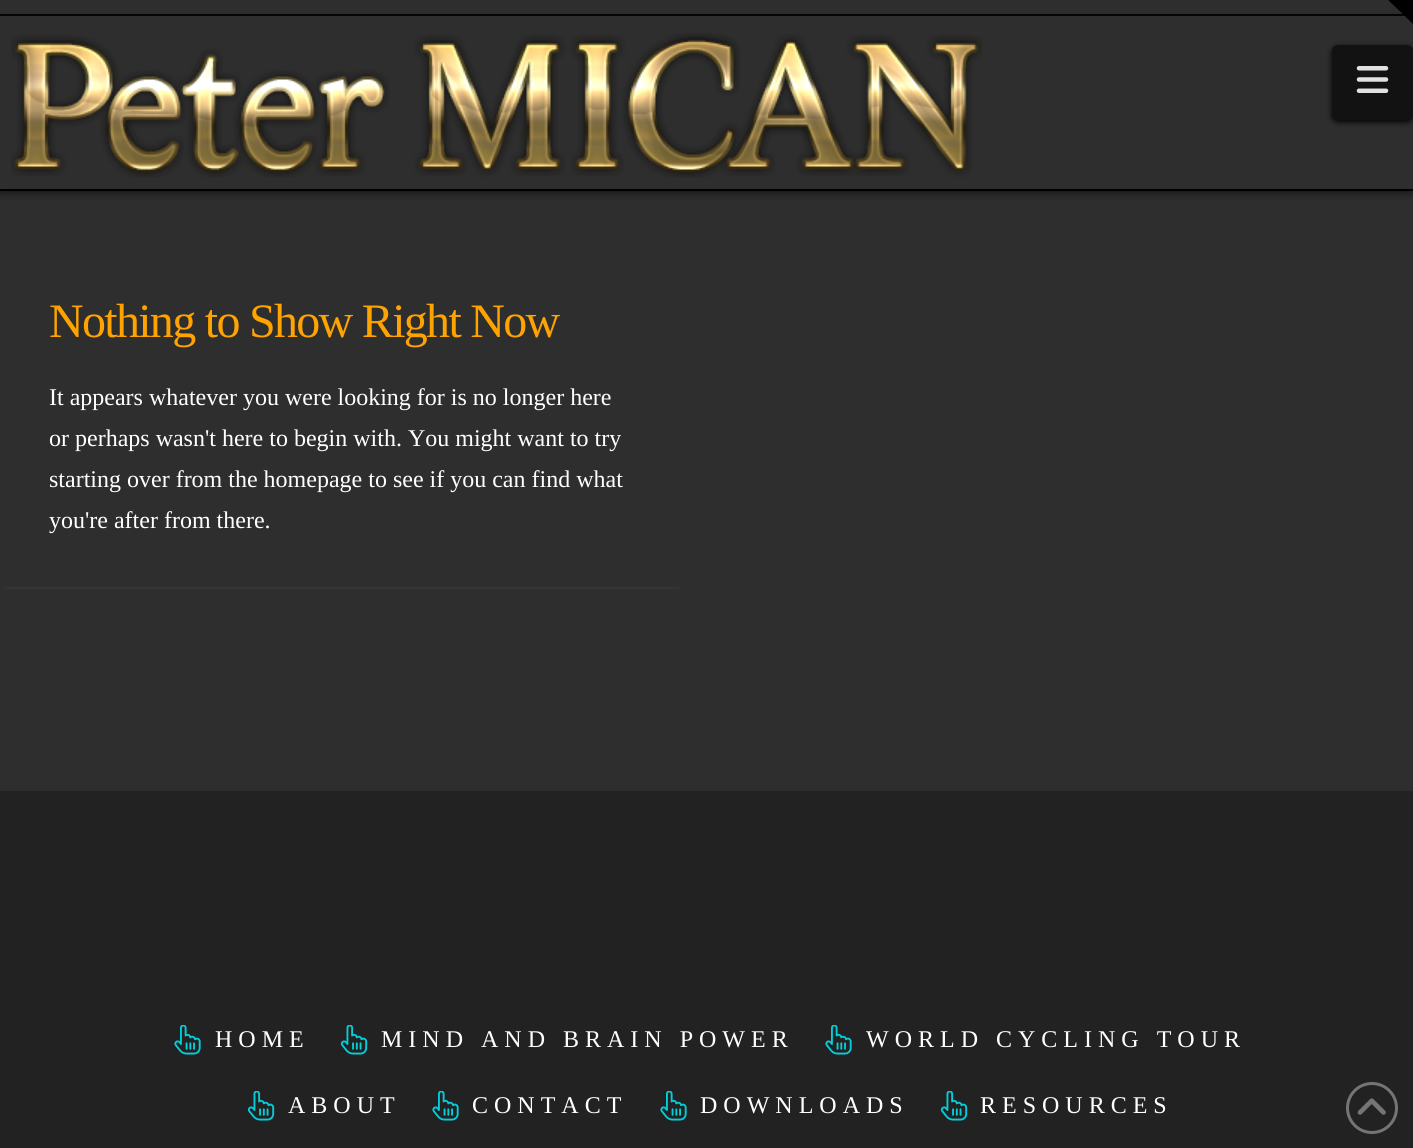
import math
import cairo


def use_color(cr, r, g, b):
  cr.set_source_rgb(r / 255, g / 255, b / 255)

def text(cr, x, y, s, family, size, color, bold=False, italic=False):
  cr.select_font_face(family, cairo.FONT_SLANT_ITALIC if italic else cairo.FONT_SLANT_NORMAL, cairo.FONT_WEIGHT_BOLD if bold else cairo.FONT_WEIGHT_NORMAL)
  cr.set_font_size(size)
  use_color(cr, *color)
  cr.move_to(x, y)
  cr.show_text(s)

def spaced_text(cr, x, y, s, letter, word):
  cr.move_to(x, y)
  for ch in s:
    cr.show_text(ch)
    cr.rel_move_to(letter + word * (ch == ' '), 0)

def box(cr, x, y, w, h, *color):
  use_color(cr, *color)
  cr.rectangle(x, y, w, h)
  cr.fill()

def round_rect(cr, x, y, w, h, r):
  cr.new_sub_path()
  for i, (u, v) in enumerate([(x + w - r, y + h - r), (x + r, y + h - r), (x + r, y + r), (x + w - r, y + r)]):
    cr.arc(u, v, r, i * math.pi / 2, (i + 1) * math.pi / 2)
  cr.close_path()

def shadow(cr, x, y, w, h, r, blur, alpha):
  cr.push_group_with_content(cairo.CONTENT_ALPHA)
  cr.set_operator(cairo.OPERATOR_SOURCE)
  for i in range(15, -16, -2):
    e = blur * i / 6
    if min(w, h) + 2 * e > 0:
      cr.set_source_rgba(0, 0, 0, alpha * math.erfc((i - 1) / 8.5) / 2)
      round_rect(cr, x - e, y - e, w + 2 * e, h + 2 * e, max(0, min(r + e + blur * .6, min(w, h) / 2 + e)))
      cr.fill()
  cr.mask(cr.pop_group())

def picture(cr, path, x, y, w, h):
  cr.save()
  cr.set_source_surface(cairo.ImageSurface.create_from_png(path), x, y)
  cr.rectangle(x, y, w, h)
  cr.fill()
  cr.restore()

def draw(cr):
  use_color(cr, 46, 46, 46)
  cr.paint()
  cr.save()
  cr.set_fill_rule(cairo.FILL_RULE_EVEN_ODD)
  cr.new_path()
  cr.move_to(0, 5)
  cr.line_to(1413, 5)
  cr.line_to(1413, 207)
  cr.line_to(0, 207)
  cr.close_path()
  cr.move_to(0, 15)
  cr.line_to(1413, 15)
  cr.line_to(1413, 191)
  cr.line_to(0, 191)
  cr.close_path()
  cr.clip()
  use_color(cr, 0, 0, 0)
  shadow(cr, 0, 18, 1413, 176, 0, 4, 0.47)
  cr.restore()
  box(cr, 0, 14, 1413, 2, 5, 5, 5)
  use_color(cr, 0, 0, 0)
  cr.new_path()
  cr.move_to(1413, -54)
  cr.line_to(1413, 24)
  cr.line_to(1384, -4)
  cr.line_to(1384, -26)
  cr.close_path()
  cr.fill()
  box(cr, 0, 189, 1413, 2, 0, 0, 0)
  picture(cr, "img_01.png", 11, 33, 971, 145)
  use_color(cr, 0, 0, 0)
  shadow(cr, 1332, 47, 81, 75, 6, 3, 1)
  use_color(cr, 18, 18, 18)
  round_rect(cr, 1332, 45, 81, 75, 6)
  cr.fill()
  picture(cr, "img_02.png", 1356, 66, 33, 27)
  use_color(cr, 255, 255, 255)
  shadow(cr, 3, 258, 677, 330, 3, 1.5, 0.07)
  use_color(cr, 46, 46, 46)
  round_rect(cr, 0, 251, 683, 336, 6)
  cr.fill()
  box(cr, 0, 791, 1413, 357, 34, 34, 34)
  picture(cr, "img_03.png", 174, 1025, 27, 30)
  picture(cr, "img_04.png", 340, 1025, 28, 30)
  picture(cr, "img_03.png", 825, 1025, 27, 30)
  picture(cr, "img_04.png", 247, 1091, 28, 30)
  picture(cr, "img_03.png", 432, 1091, 27, 30)
  picture(cr, "img_03.png", 660, 1091, 27, 30)
  picture(cr, "img_04.png", 940, 1091, 28, 30)
  cr.arc(1372, 1108, 24.5, 0, 2 * math.pi)
  use_color(cr, 117, 117, 117)
  cr.set_line_width(3)
  cr.stroke()
  picture(cr, "img_05.png", 1357, 1098, 29, 17)
  cr.select_font_face("Liberation Serif")
  cr.set_font_size(48)
  use_color(cr, 255, 163, 0)
  spaced_text(cr, 49, 337, "Nothing to Show Right Now", -1.7, 0)
  text(cr, 49, 405, "It appears whatever you were looking for is no longer here", "Liberation Serif", 24, (255, 255, 255))
  text(cr, 49, 446, "or perhaps wasn't here to begin with. You might want to try", "Liberation Serif", 24, (255, 255, 255))
  text(cr, 49, 487, "starting over from the homepage to see if you can find what", "Liberation Serif", 24, (255, 255, 255))
  text(cr, 49, 528, "you're after from there.", "Liberation Serif", 24, (255, 255, 255))
  spaced_text(cr, 215, 1047, "HOME", 6, 0)
  spaced_text(cr, 381, 1047, "MIND AND BRAIN POWER", 6, 0)
  spaced_text(cr, 866, 1047, "WORLD CYCLING TOUR", 6, 0)
  spaced_text(cr, 288, 1113, "ABOUT", 6, 0)
  spaced_text(cr, 472, 1113, "CONTACT", 6, 0)
  spaced_text(cr, 700, 1113, "DOWNLOADS", 6, 0)
  spaced_text(cr, 980, 1113, "RESOURCES", 6, 0)


surface = cairo.ImageSurface(cairo.FORMAT_RGB24, 1413, 1148)
cr = cairo.Context(surface)
options = cairo.FontOptions()
options.set_hint_metrics(cairo.HINT_METRICS_OFF)
options.set_hint_style(cairo.HINT_STYLE_NONE)
cr.set_font_options(options)
cr.set_miter_limit(4)
draw(cr)
surface.write_to_png("out.png")
